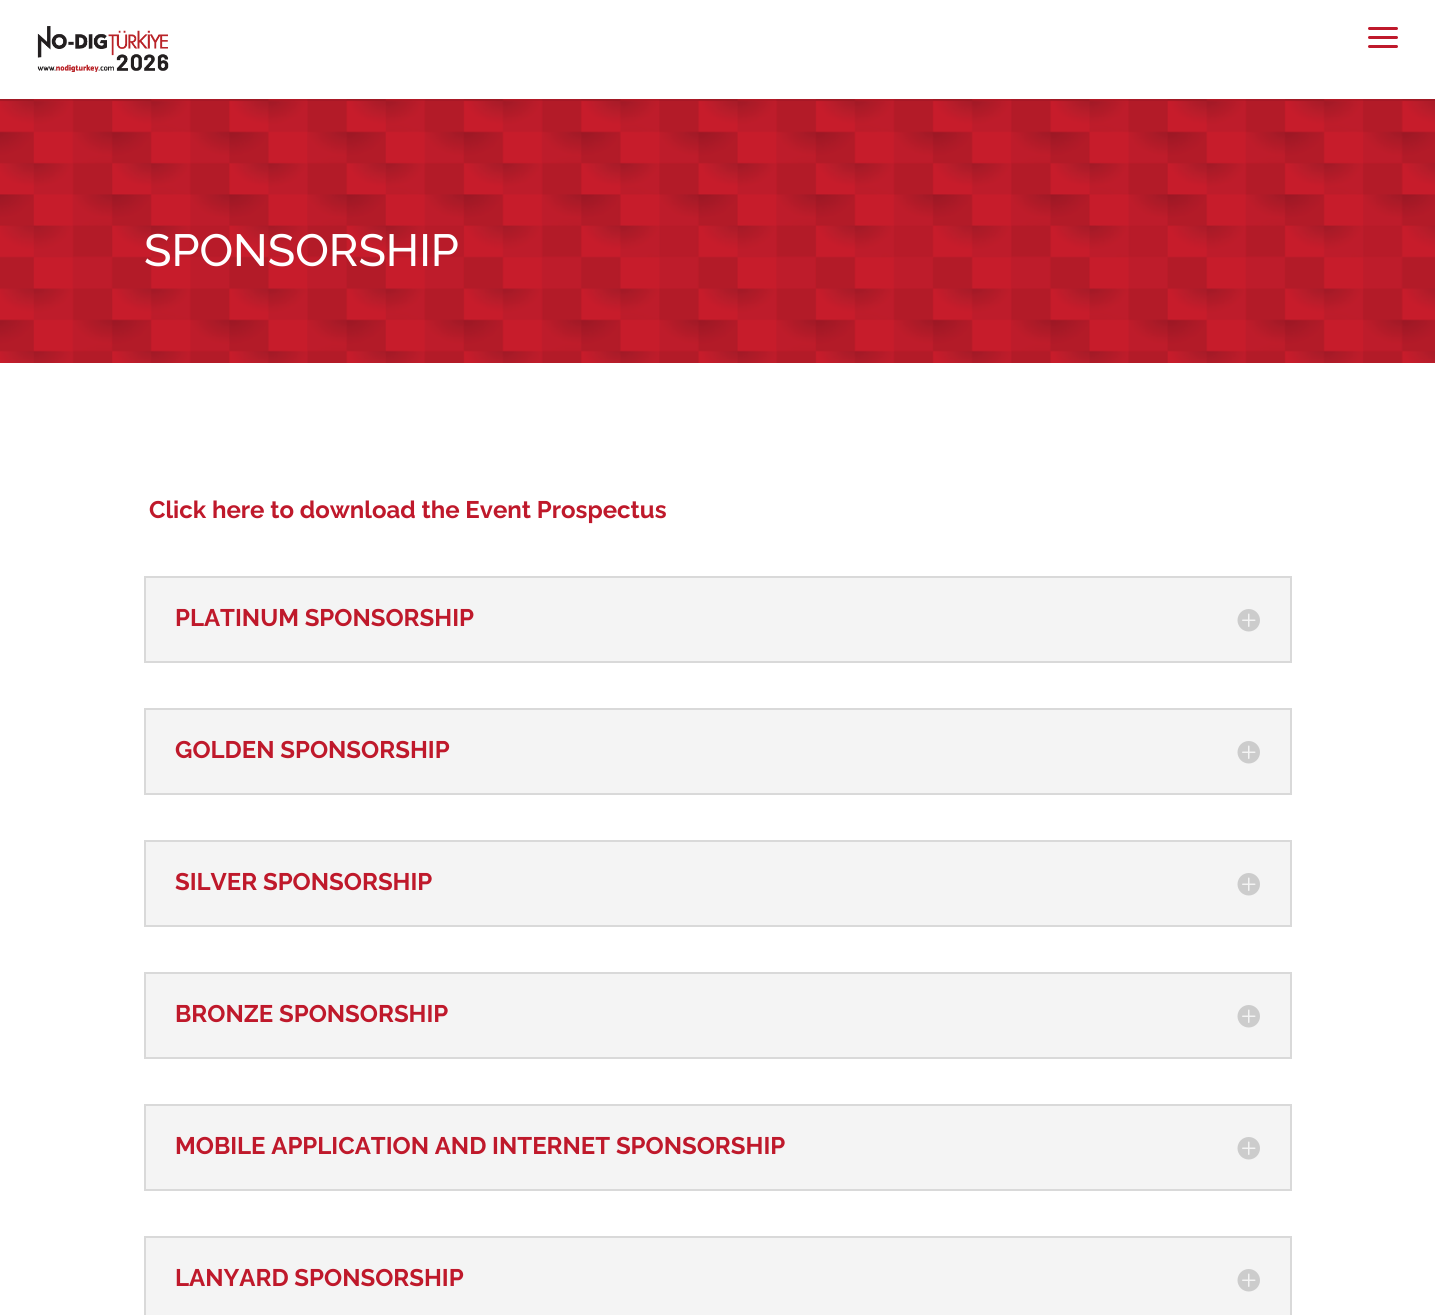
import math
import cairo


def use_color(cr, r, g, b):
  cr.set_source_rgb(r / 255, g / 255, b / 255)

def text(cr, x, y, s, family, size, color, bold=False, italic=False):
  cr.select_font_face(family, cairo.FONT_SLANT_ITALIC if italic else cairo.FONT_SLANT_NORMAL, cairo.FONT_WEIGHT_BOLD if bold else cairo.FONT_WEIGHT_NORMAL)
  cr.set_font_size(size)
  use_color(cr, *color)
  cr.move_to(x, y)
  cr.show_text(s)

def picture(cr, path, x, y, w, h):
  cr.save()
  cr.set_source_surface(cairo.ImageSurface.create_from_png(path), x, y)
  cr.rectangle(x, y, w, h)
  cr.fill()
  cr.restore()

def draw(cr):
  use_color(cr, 255, 255, 255)
  cr.paint()
  picture(cr, "img_03.png", 0, 99, 1435, 264)
  cr.set_source_rgba(0, 0, 0, 0.1)
  cr.new_path()
  cr.move_to(0, 99)
  cr.line_to(0, 101)
  cr.line_to(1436, 101)
  cr.line_to(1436, 2)
  cr.line_to(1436, 99)
  cr.close_path()
  cr.fill()
  picture(cr, "img_01.png", 37, 26, 132, 46)
  picture(cr, "img_02.png", 1368, 27, 30, 21)
  use_color(cr, 244, 244, 244)
  cr.rectangle(145, 577, 1146, 85)
  cr.fill_preserve()
  use_color(cr, 217, 217, 217)
  cr.stroke()
  picture(cr, "img_04.png", 1237, 609, 23, 23)
  use_color(cr, 244, 244, 244)
  cr.rectangle(145, 709, 1146, 85)
  cr.fill_preserve()
  use_color(cr, 217, 217, 217)
  cr.stroke()
  picture(cr, "img_04.png", 1237, 741, 23, 23)
  use_color(cr, 244, 244, 244)
  cr.rectangle(145, 841, 1146, 85)
  cr.fill_preserve()
  use_color(cr, 217, 217, 217)
  cr.stroke()
  picture(cr, "img_04.png", 1237, 873, 23, 23)
  use_color(cr, 244, 244, 244)
  cr.rectangle(145, 973, 1146, 85)
  cr.fill_preserve()
  use_color(cr, 217, 217, 217)
  cr.stroke()
  picture(cr, "img_04.png", 1237, 1005, 23, 23)
  use_color(cr, 244, 244, 244)
  cr.rectangle(145, 1105, 1146, 85)
  cr.fill_preserve()
  use_color(cr, 217, 217, 217)
  cr.stroke()
  picture(cr, "img_04.png", 1237, 1137, 23, 23)
  use_color(cr, 244, 244, 244)
  cr.rectangle(145, 1237, 1146, 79)
  cr.fill_preserve()
  use_color(cr, 217, 217, 217)
  cr.stroke()
  picture(cr, "img_04.png", 1237, 1269, 23, 23)
  text(cr, 144, 266, "SPONSORSHIP", "Raleway Medium", 45, (255, 255, 255))
  text(cr, 149, 518, "Click here to download the Event Prospectus", "Raleway", 24, (191, 25, 43), bold=True)
  text(cr, 175, 626, "PLATINUM SPONSORSHIP", "Raleway", 24, (191, 25, 43), bold=True)
  text(cr, 175, 758, "GOLDEN SPONSORSHIP", "Raleway", 24, (191, 25, 43), bold=True)
  text(cr, 175, 890, "SILVER SPONSORSHIP", "Raleway", 24, (191, 25, 43), bold=True)
  text(cr, 175, 1022, "BRONZE SPONSORSHIP", "Raleway", 24, (191, 25, 43), bold=True)
  text(cr, 175, 1154, "MOBILE APPLICATION AND INTERNET SPONSORSHIP", "Raleway", 24, (191, 25, 43), bold=True)
  text(cr, 175, 1286, "LANYARD SPONSORSHIP", "Raleway", 24, (191, 25, 43), bold=True)


surface = cairo.ImageSurface(cairo.FORMAT_RGB24, 1435, 1315)
cr = cairo.Context(surface)
options = cairo.FontOptions()
options.set_hint_metrics(cairo.HINT_METRICS_OFF)
options.set_hint_style(cairo.HINT_STYLE_NONE)
cr.set_font_options(options)
cr.set_miter_limit(4)
draw(cr)
surface.write_to_png("out.png")
